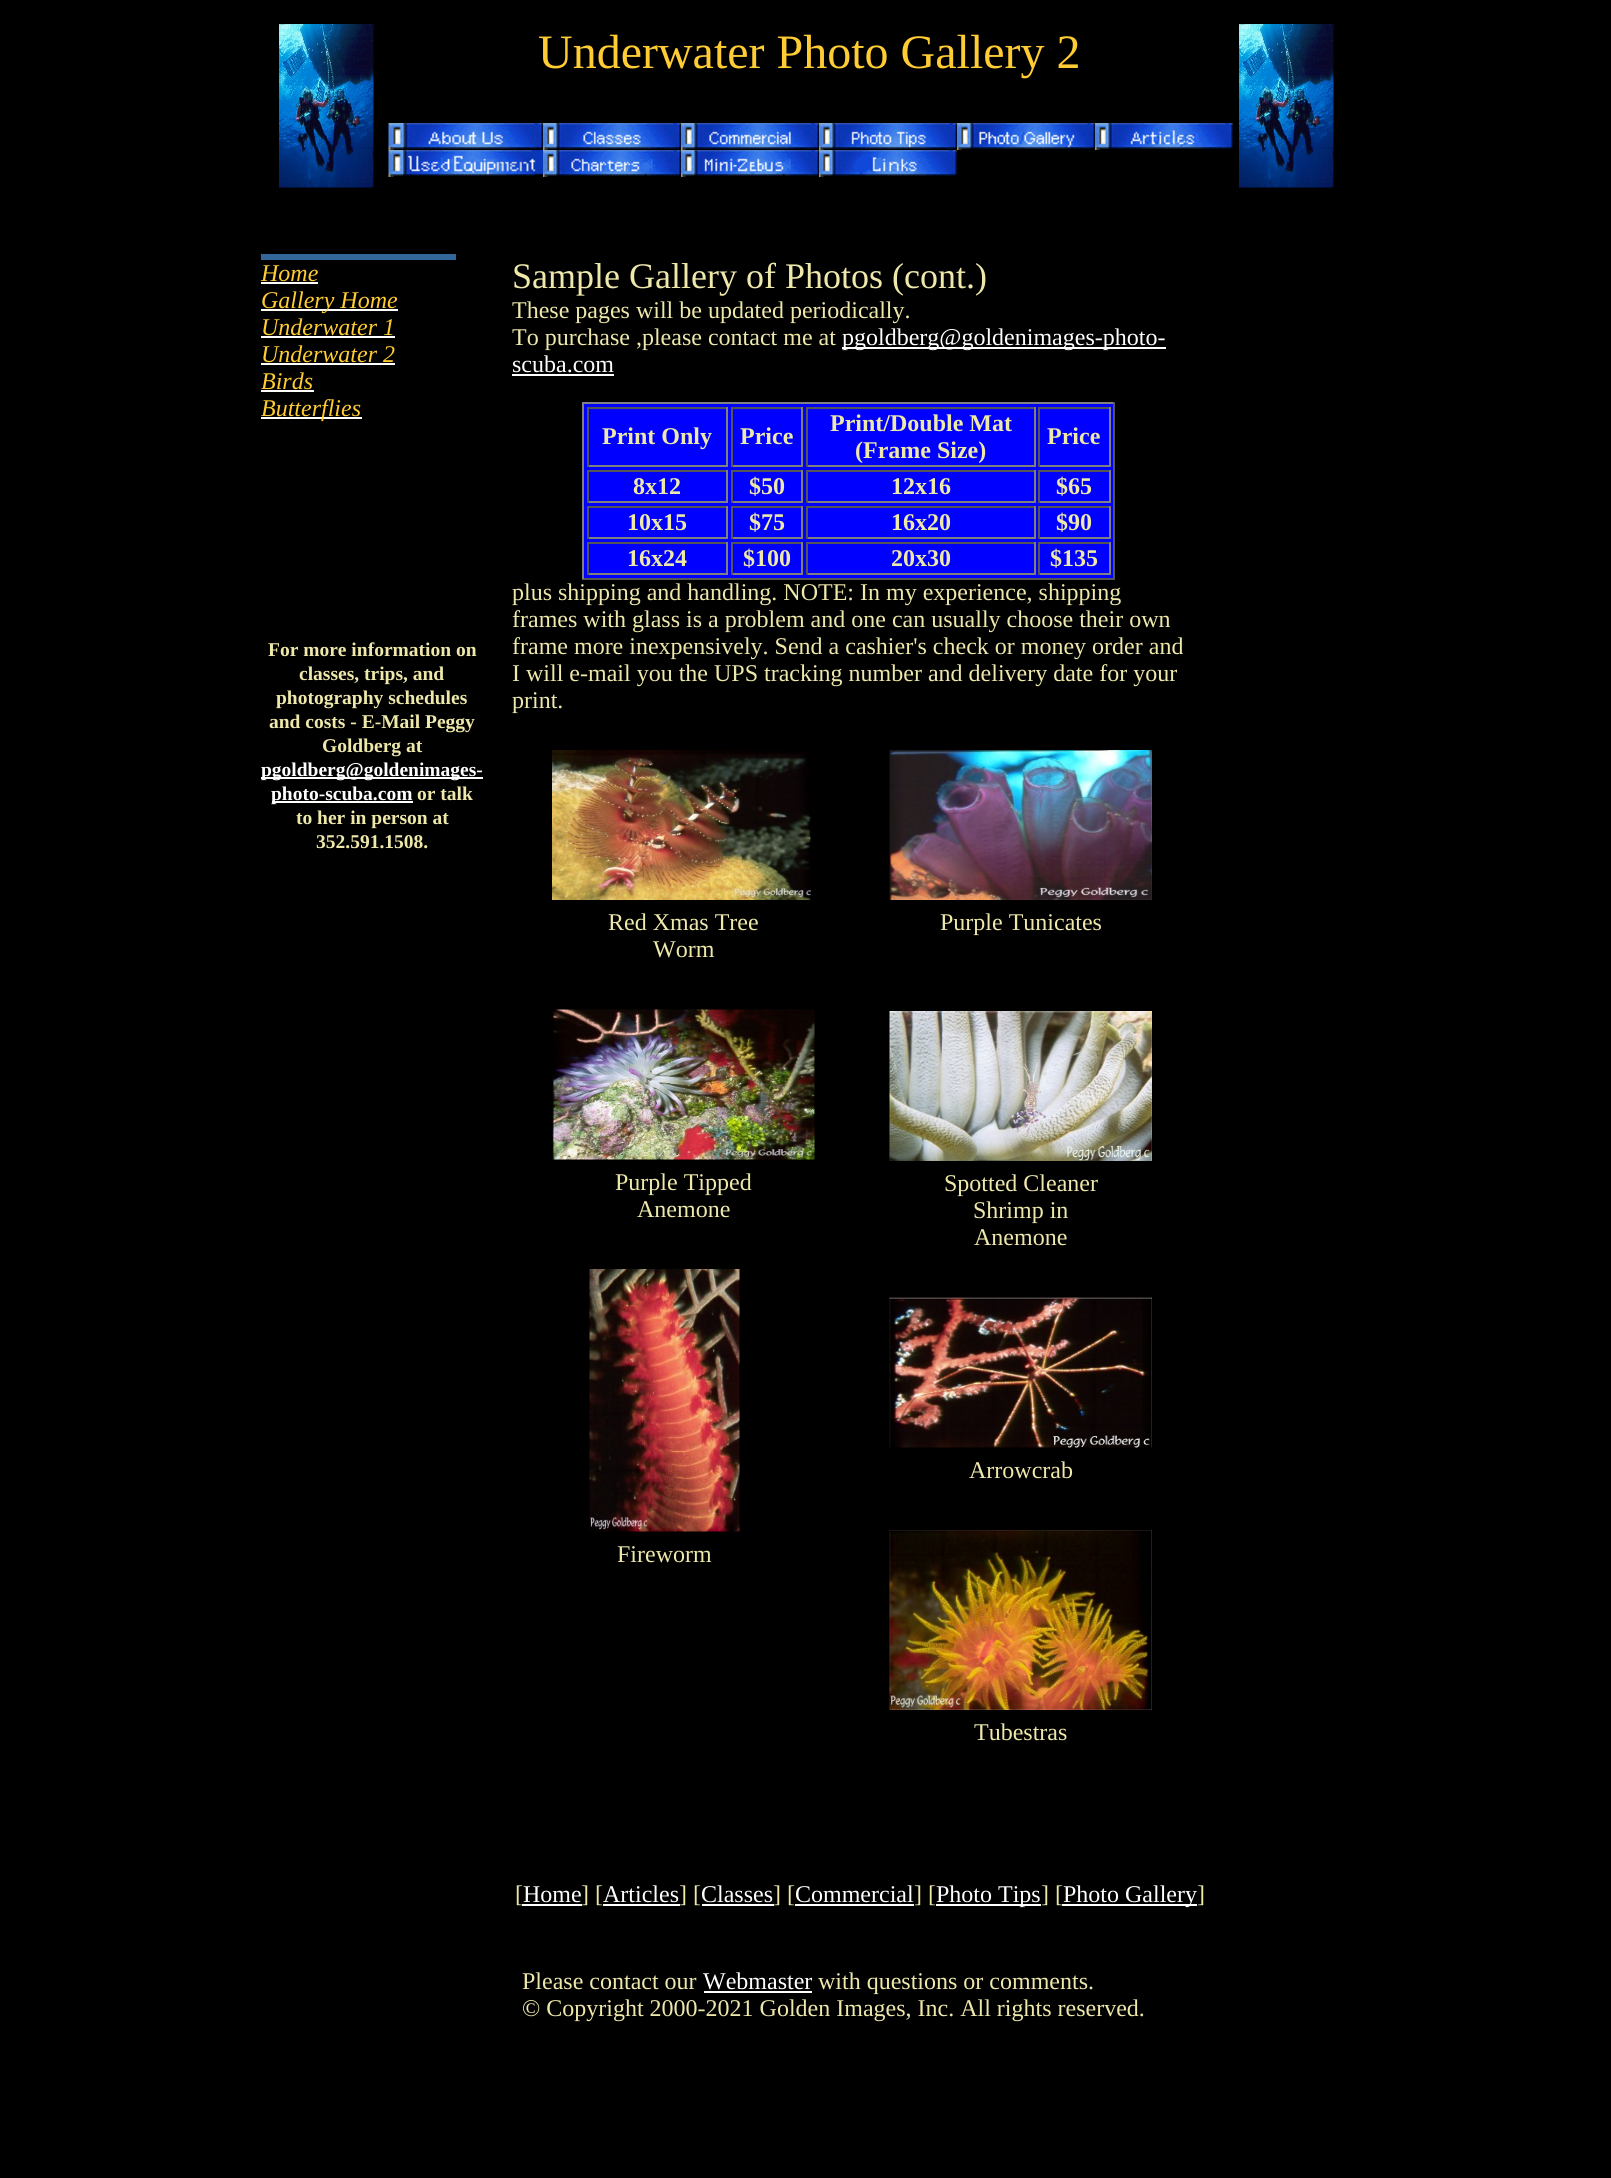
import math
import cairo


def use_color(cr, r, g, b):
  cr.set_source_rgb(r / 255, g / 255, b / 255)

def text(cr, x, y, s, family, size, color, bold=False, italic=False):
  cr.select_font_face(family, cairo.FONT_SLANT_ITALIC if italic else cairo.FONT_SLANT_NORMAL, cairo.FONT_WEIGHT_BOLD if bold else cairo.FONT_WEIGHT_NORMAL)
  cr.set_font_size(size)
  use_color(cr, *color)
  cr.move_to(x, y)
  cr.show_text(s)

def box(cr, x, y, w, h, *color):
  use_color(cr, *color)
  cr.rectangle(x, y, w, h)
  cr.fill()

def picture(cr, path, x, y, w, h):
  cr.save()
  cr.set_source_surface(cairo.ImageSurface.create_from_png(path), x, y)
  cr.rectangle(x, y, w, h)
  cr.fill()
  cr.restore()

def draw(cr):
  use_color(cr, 0, 0, 0)
  cr.paint()
  picture(cr, "img_01.png", 279, 24, 95, 164)
  picture(cr, "img_01.png", 1239, 24, 95, 164)
  picture(cr, "img_02.png", 388, 123, 155, 27)
  picture(cr, "img_03.png", 543, 123, 138, 27)
  picture(cr, "img_04.png", 681, 123, 138, 27)
  picture(cr, "img_05.png", 819, 123, 138, 27)
  picture(cr, "img_06.png", 957, 123, 138, 27)
  picture(cr, "img_07.png", 1095, 123, 138, 27)
  picture(cr, "img_08.png", 388, 150, 155, 27)
  picture(cr, "img_09.png", 543, 150, 138, 27)
  picture(cr, "img_10.png", 681, 150, 138, 27)
  picture(cr, "img_11.png", 819, 150, 138, 27)
  box(cr, 261, 254, 195, 6, 51, 102, 153)
  box(cr, 261, 282, 57, 2, 255, 255, 255)
  box(cr, 261, 309, 137, 2, 255, 255, 255)
  box(cr, 261, 336, 134, 2, 255, 255, 255)
  box(cr, 261, 363, 134, 2, 255, 255, 255)
  box(cr, 261, 390, 53, 2, 255, 255, 255)
  box(cr, 261, 417, 101, 2, 255, 255, 255)
  box(cr, 261, 777, 222, 2, 255, 255, 255)
  box(cr, 272, 801, 141, 2, 255, 255, 255)
  box(cr, 842, 347, 324, 2, 255, 255, 255)
  box(cr, 512, 374, 102, 2, 255, 255, 255)
  box(cr, 584, 404, 529, 174, 0, 0, 255)
  box(cr, 582, 402, 533, 2, 128, 128, 128)
  box(cr, 1113, 402, 2, 177, 85, 85, 85)
  box(cr, 582, 578, 533, 2, 85, 85, 85)
  box(cr, 582, 402, 2, 177, 128, 128, 128)
  box(cr, 587, 407, 141, 2, 85, 85, 85)
  box(cr, 726, 407, 2, 60, 128, 128, 128)
  box(cr, 587, 465, 141, 2, 128, 128, 128)
  box(cr, 587, 407, 2, 60, 85, 85, 85)
  box(cr, 731, 407, 72, 2, 85, 85, 85)
  box(cr, 801, 407, 2, 60, 128, 128, 128)
  box(cr, 731, 465, 72, 2, 128, 128, 128)
  box(cr, 731, 407, 2, 60, 85, 85, 85)
  box(cr, 806, 407, 229, 2, 85, 85, 85)
  box(cr, 1034, 407, 2, 60, 128, 128, 128)
  box(cr, 806, 465, 229, 2, 128, 128, 128)
  box(cr, 806, 407, 2, 60, 85, 85, 85)
  box(cr, 1038, 407, 72, 2, 85, 85, 85)
  box(cr, 1109, 407, 2, 60, 128, 128, 128)
  box(cr, 1038, 465, 72, 2, 128, 128, 128)
  box(cr, 1038, 407, 2, 60, 85, 85, 85)
  box(cr, 587, 470, 141, 2, 85, 85, 85)
  box(cr, 726, 470, 2, 33, 128, 128, 128)
  box(cr, 587, 501, 141, 2, 128, 128, 128)
  box(cr, 587, 470, 2, 33, 85, 85, 85)
  box(cr, 731, 470, 72, 2, 85, 85, 85)
  box(cr, 801, 470, 2, 33, 128, 128, 128)
  box(cr, 731, 501, 72, 2, 128, 128, 128)
  box(cr, 731, 470, 2, 33, 85, 85, 85)
  box(cr, 806, 470, 229, 2, 85, 85, 85)
  box(cr, 1034, 470, 2, 33, 128, 128, 128)
  box(cr, 806, 501, 229, 2, 128, 128, 128)
  box(cr, 806, 470, 2, 33, 85, 85, 85)
  box(cr, 1038, 470, 72, 2, 85, 85, 85)
  box(cr, 1109, 470, 2, 33, 128, 128, 128)
  box(cr, 1038, 501, 72, 2, 128, 128, 128)
  box(cr, 1038, 470, 2, 33, 85, 85, 85)
  box(cr, 587, 506, 141, 2, 85, 85, 85)
  box(cr, 726, 506, 2, 33, 128, 128, 128)
  box(cr, 587, 537, 141, 2, 128, 128, 128)
  box(cr, 587, 506, 2, 33, 85, 85, 85)
  box(cr, 731, 506, 72, 2, 85, 85, 85)
  box(cr, 801, 506, 2, 33, 128, 128, 128)
  box(cr, 731, 537, 72, 2, 128, 128, 128)
  box(cr, 731, 506, 2, 33, 85, 85, 85)
  box(cr, 806, 506, 229, 2, 85, 85, 85)
  box(cr, 1034, 506, 2, 33, 128, 128, 128)
  box(cr, 806, 537, 229, 2, 128, 128, 128)
  box(cr, 806, 506, 2, 33, 85, 85, 85)
  box(cr, 1038, 506, 72, 2, 85, 85, 85)
  box(cr, 1109, 506, 2, 33, 128, 128, 128)
  box(cr, 1038, 537, 72, 2, 128, 128, 128)
  box(cr, 1038, 506, 2, 33, 85, 85, 85)
  box(cr, 587, 542, 141, 2, 85, 85, 85)
  box(cr, 726, 542, 2, 33, 128, 128, 128)
  box(cr, 587, 573, 141, 2, 128, 128, 128)
  box(cr, 587, 542, 2, 33, 85, 85, 85)
  box(cr, 731, 542, 72, 2, 85, 85, 85)
  box(cr, 801, 542, 2, 33, 128, 128, 128)
  box(cr, 731, 573, 72, 2, 128, 128, 128)
  box(cr, 731, 542, 2, 33, 85, 85, 85)
  box(cr, 806, 542, 229, 2, 85, 85, 85)
  box(cr, 1034, 542, 2, 33, 128, 128, 128)
  box(cr, 806, 573, 229, 2, 128, 128, 128)
  box(cr, 806, 542, 2, 33, 85, 85, 85)
  box(cr, 1038, 542, 72, 2, 85, 85, 85)
  box(cr, 1109, 542, 2, 33, 128, 128, 128)
  box(cr, 1038, 573, 72, 2, 128, 128, 128)
  box(cr, 1038, 542, 2, 33, 85, 85, 85)
  picture(cr, "img_12.png", 552, 750, 262, 150)
  picture(cr, "img_13.png", 552, 1009, 263, 151)
  picture(cr, "img_14.png", 589, 1269, 151, 263)
  picture(cr, "img_15.png", 889, 750, 263, 150)
  picture(cr, "img_16.png", 889, 1011, 263, 150)
  picture(cr, "img_17.png", 889, 1297, 263, 151)
  picture(cr, "img_18.png", 889, 1530, 263, 180)
  box(cr, 522, 1904, 60, 2, 255, 255, 255)
  box(cr, 603, 1904, 77, 2, 255, 255, 255)
  box(cr, 702, 1904, 72, 2, 255, 255, 255)
  box(cr, 795, 1904, 119, 2, 255, 255, 255)
  box(cr, 936, 1904, 105, 2, 255, 255, 255)
  box(cr, 1062, 1904, 135, 2, 255, 255, 255)
  box(cr, 704, 1991, 108, 2, 255, 255, 255)
  text(cr, 538, 68, "Underwater Photo Gallery 2", "Liberation Serif", 48, (255, 204, 51))
  text(cr, 261, 281, "Home", "Liberation Serif", 24, (255, 204, 51), italic=True)
  text(cr, 261, 308, "Gallery Home", "Liberation Serif", 24, (255, 204, 51), italic=True)
  text(cr, 261, 335, "Underwater 1", "Liberation Serif", 24, (255, 204, 51), italic=True)
  text(cr, 261, 362, "Underwater 2", "Liberation Serif", 24, (255, 204, 51), italic=True)
  text(cr, 261, 389, "Birds", "Liberation Serif", 24, (255, 204, 51), italic=True)
  text(cr, 261, 416, "Butterflies", "Liberation Serif", 24, (255, 204, 51), italic=True)
  text(cr, 268, 656, "For more information on", "Liberation Serif", 19.5, (238, 232, 170), bold=True)
  text(cr, 299, 680, "classes, trips, and", "Liberation Serif", 19.5, (238, 232, 170), bold=True)
  text(cr, 276, 704, "photography schedules", "Liberation Serif", 19.5, (238, 232, 170), bold=True)
  text(cr, 269, 728, "and costs - E-Mail Peggy", "Liberation Serif", 19.5, (238, 232, 170), bold=True)
  text(cr, 322, 752, "Goldberg at", "Liberation Serif", 19.5, (238, 232, 170), bold=True)
  text(cr, 261, 776, "pgoldberg@goldenimages-", "Liberation Serif", 19.5, (255, 255, 255), bold=True)
  text(cr, 271, 800, "photo-scuba.com", "Liberation Serif", 19.5, (255, 255, 255), bold=True)
  text(cr, 417, 800, "or talk", "Liberation Serif", 19.5, (238, 232, 170), bold=True)
  text(cr, 296, 824, "to her in person at", "Liberation Serif", 19.5, (238, 232, 170), bold=True)
  text(cr, 316, 848, "352.591.1508.", "Liberation Serif", 19.5, (238, 232, 170), bold=True)
  text(cr, 512, 288, "Sample Gallery of Photos (cont.)", "Liberation Serif", 36, (238, 232, 170))
  text(cr, 512, 318, "These pages will be updated periodically.", "Liberation Serif", 24, (238, 232, 170))
  text(cr, 512, 345, "To purchase ,please contact me at", "Liberation Serif", 24, (238, 232, 170))
  text(cr, 842, 345, "pgoldberg@goldenimages-photo-", "Liberation Serif", 24, (255, 255, 255))
  text(cr, 512, 372, "scuba.com", "Liberation Serif", 24, (255, 255, 255))
  text(cr, 602, 444, "Print Only", "Liberation Serif", 24, (238, 232, 170), bold=True)
  text(cr, 740, 444, "Price", "Liberation Serif", 24, (238, 232, 170), bold=True)
  text(cr, 830, 431, "Print/Double Mat", "Liberation Serif", 24, (238, 232, 170), bold=True)
  text(cr, 855, 458, "(Frame Size)", "Liberation Serif", 24, (238, 232, 170), bold=True)
  text(cr, 1047, 444, "Price", "Liberation Serif", 24, (238, 232, 170), bold=True)
  text(cr, 633, 494, "8x12", "Liberation Serif", 24, (238, 232, 170), bold=True)
  text(cr, 749, 494, "$50", "Liberation Serif", 24, (238, 232, 170), bold=True)
  text(cr, 891, 494, "12x16", "Liberation Serif", 24, (238, 232, 170), bold=True)
  text(cr, 1056, 494, "$65", "Liberation Serif", 24, (238, 232, 170), bold=True)
  text(cr, 627, 530, "10x15", "Liberation Serif", 24, (238, 232, 170), bold=True)
  text(cr, 749, 530, "$75", "Liberation Serif", 24, (238, 232, 170), bold=True)
  text(cr, 891, 530, "16x20", "Liberation Serif", 24, (238, 232, 170), bold=True)
  text(cr, 1056, 530, "$90", "Liberation Serif", 24, (238, 232, 170), bold=True)
  text(cr, 627, 566, "16x24", "Liberation Serif", 24, (238, 232, 170), bold=True)
  text(cr, 743, 566, "$100", "Liberation Serif", 24, (238, 232, 170), bold=True)
  text(cr, 891, 566, "20x30", "Liberation Serif", 24, (238, 232, 170), bold=True)
  text(cr, 1050, 566, "$135", "Liberation Serif", 24, (238, 232, 170), bold=True)
  text(cr, 512, 600, "plus shipping and handling. NOTE: In my experience, shipping", "Liberation Serif", 24, (238, 232, 170))
  text(cr, 512, 627, "frames with glass is a problem and one can usually choose their own", "Liberation Serif", 24, (238, 232, 170))
  text(cr, 512, 654, "frame more inexpensively. Send a cashier's check or money order and", "Liberation Serif", 24, (238, 232, 170))
  text(cr, 512, 681, "I will e-mail you the UPS tracking number and delivery date for your", "Liberation Serif", 24, (238, 232, 170))
  text(cr, 512, 708, "print.", "Liberation Serif", 24, (238, 232, 170))
  text(cr, 608, 930, "Red Xmas Tree", "Liberation Serif", 24, (238, 232, 170))
  text(cr, 653, 957, "Worm", "Liberation Serif", 24, (238, 232, 170))
  text(cr, 615, 1190, "Purple Tipped", "Liberation Serif", 24, (238, 232, 170))
  text(cr, 637, 1217, "Anemone", "Liberation Serif", 24, (238, 232, 170))
  text(cr, 617, 1562, "Fireworm", "Liberation Serif", 24, (238, 232, 170))
  text(cr, 940, 930, "Purple Tunicates", "Liberation Serif", 24, (238, 232, 170))
  text(cr, 944, 1191, "Spotted Cleaner", "Liberation Serif", 24, (238, 232, 170))
  text(cr, 973, 1218, "Shrimp in", "Liberation Serif", 24, (238, 232, 170))
  text(cr, 974, 1245, "Anemone", "Liberation Serif", 24, (238, 232, 170))
  text(cr, 969, 1478, "Arrowcrab", "Liberation Serif", 24, (238, 232, 170))
  text(cr, 974, 1740, "Tubestras", "Liberation Serif", 24, (238, 232, 170))
  text(cr, 515, 1902, "[", "Liberation Serif", 24, (238, 232, 170))
  text(cr, 523, 1902, "Home", "Liberation Serif", 24, (255, 255, 255))
  text(cr, 581, 1902, "] [", "Liberation Serif", 24, (238, 232, 170))
  text(cr, 603, 1902, "Articles", "Liberation Serif", 24, (255, 255, 255))
  text(cr, 679, 1902, "] [", "Liberation Serif", 24, (238, 232, 170))
  text(cr, 701, 1902, "Classes", "Liberation Serif", 24, (255, 255, 255))
  text(cr, 773, 1902, "] [", "Liberation Serif", 24, (238, 232, 170))
  text(cr, 795, 1902, "Commercial", "Liberation Serif", 24, (255, 255, 255))
  text(cr, 914, 1902, "] [", "Liberation Serif", 24, (238, 232, 170))
  text(cr, 936, 1902, "Photo Tips", "Liberation Serif", 24, (255, 255, 255))
  text(cr, 1041, 1902, "] [", "Liberation Serif", 24, (238, 232, 170))
  text(cr, 1063, 1902, "Photo Gallery", "Liberation Serif", 24, (255, 255, 255))
  text(cr, 1197, 1902, "]", "Liberation Serif", 24, (238, 232, 170))
  text(cr, 522, 1989, "Please contact our", "Liberation Serif", 24, (238, 232, 170))
  text(cr, 703, 1989, "Webmaster", "Liberation Serif", 24, (255, 255, 255))
  text(cr, 818, 1989, "with questions or comments.", "Liberation Serif", 24, (238, 232, 170))
  text(cr, 522, 2016, "© Copyright 2000-2021 Golden Images, Inc. All rights reserved.", "Liberation Serif", 24, (238, 232, 170))


surface = cairo.ImageSurface(cairo.FORMAT_RGB24, 1611, 2178)
cr = cairo.Context(surface)
options = cairo.FontOptions()
options.set_hint_metrics(cairo.HINT_METRICS_OFF)
options.set_hint_style(cairo.HINT_STYLE_NONE)
cr.set_font_options(options)
cr.set_miter_limit(4)
draw(cr)
surface.write_to_png("out.png")
